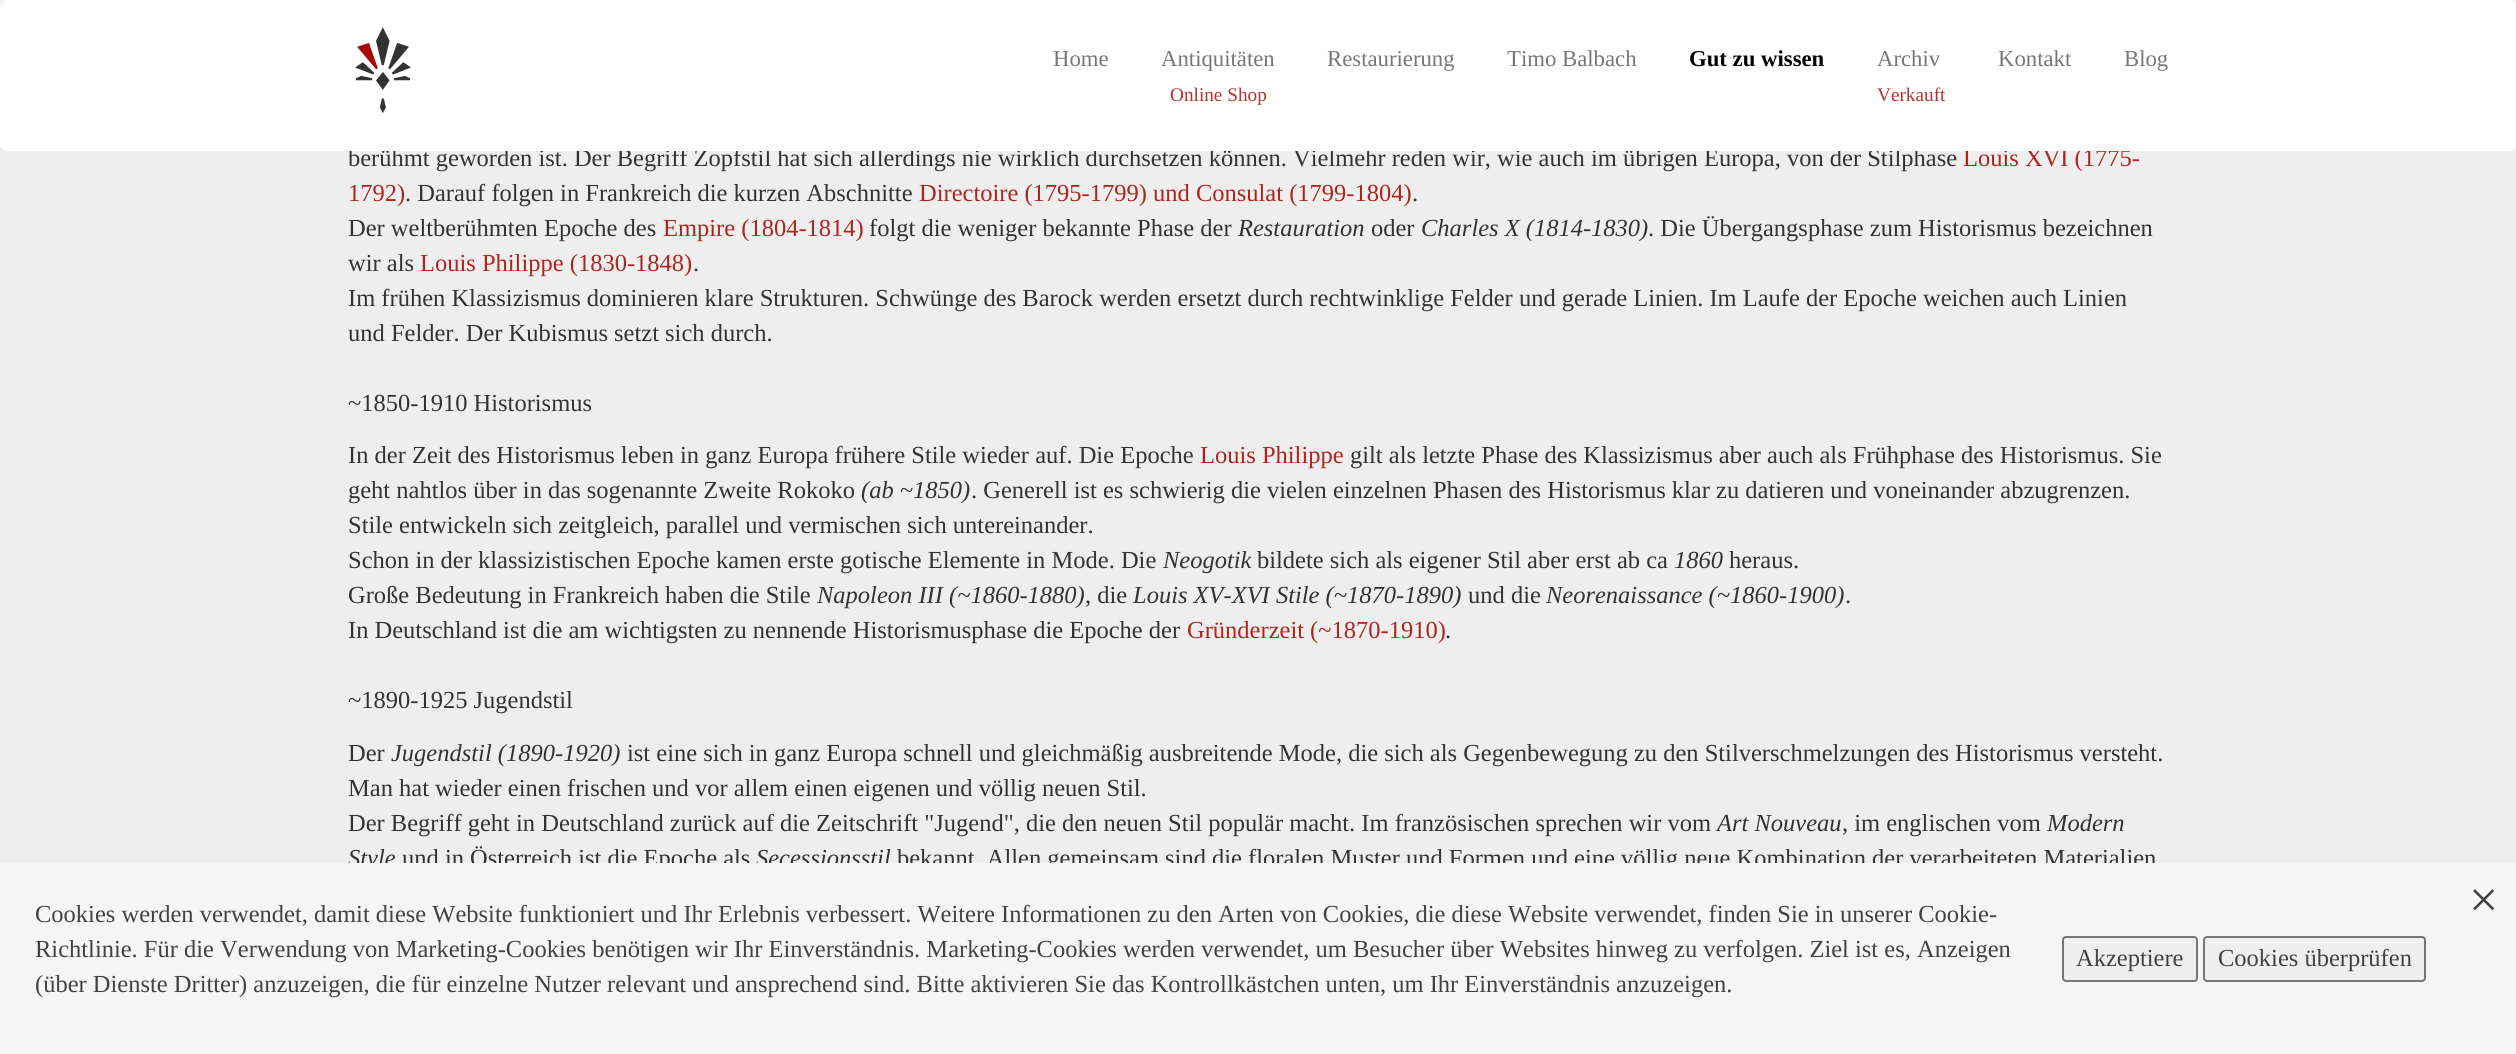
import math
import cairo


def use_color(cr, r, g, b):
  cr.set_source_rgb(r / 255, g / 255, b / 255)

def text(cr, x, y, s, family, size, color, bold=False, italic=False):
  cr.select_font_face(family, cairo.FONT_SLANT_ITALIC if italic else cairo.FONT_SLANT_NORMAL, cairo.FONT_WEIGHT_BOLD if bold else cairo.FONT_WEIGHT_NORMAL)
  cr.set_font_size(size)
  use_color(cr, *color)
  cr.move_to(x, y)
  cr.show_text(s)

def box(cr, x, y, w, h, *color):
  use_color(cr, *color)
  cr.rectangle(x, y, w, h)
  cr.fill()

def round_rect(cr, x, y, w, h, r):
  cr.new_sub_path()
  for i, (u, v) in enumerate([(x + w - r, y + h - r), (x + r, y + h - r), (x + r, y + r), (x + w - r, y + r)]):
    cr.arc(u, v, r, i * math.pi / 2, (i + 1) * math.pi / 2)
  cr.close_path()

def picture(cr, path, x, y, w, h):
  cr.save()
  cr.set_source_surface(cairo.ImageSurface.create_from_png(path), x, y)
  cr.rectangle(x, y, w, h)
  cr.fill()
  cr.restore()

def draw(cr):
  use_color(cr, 238, 238, 238)
  cr.paint()
  text(cr, 348, 166, "berühmt geworden ist. Der Begriff Zopfstil hat sich allerdings nie wirklich durchsetzen können. Vielmehr reden wir, wie auch im übrigen Europa, von der Stilphase", "Liberation Serif", 24.5, (51, 51, 51))
  text(cr, 1963, 166, "Louis XVI (1775-", "Liberation Serif", 24.5, (174, 37, 29))
  use_color(cr, 255, 255, 255)
  round_rect(cr, 1, 1, 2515, 149, 6)
  cr.fill_preserve()
  cr.stroke()
  text(cr, 2124, 66, "Blog", "Liberation Serif", 22.75, (119, 119, 119))
  text(cr, 1998, 66, "Kontakt", "Liberation Serif", 22.75, (119, 119, 119))
  text(cr, 1877, 101, "Verkauft", "Liberation Serif", 19.25, (176, 53, 48))
  text(cr, 1877, 66, "Archiv", "Liberation Serif", 22.75, (119, 119, 119))
  text(cr, 1689, 66, "Gut zu wissen", "Liberation Serif", 22.75, (0, 0, 0), bold=True)
  text(cr, 1507, 66, "Timo Balbach", "Liberation Serif", 22.75, (119, 119, 119))
  text(cr, 1327, 66, "Restaurierung", "Liberation Serif", 22.75, (119, 119, 119))
  text(cr, 1170, 101, "Online Shop", "Liberation Serif", 19.25, (176, 53, 48))
  text(cr, 1161, 66, "Antiquitäten", "Liberation Serif", 22.75, (119, 119, 119))
  text(cr, 1053, 66, "Home", "Liberation Serif", 22.75, (119, 119, 119))
  picture(cr, "img_01.png", 355, 27, 56, 87)
  text(cr, 348, 201, "1792)", "Liberation Serif", 24.5, (174, 37, 29))
  text(cr, 405, 201, ". Darauf folgen in Frankreich die kurzen Abschnitte", "Liberation Serif", 24.5, (51, 51, 51))
  text(cr, 919, 201, "Directoire (1795-1799) und Consulat (1799-1804)", "Liberation Serif", 24.5, (174, 37, 29))
  text(cr, 1412, 201, ".", "Liberation Serif", 24.5, (51, 51, 51))
  text(cr, 348, 236, "Der weltberühmten Epoche des", "Liberation Serif", 24.5, (51, 51, 51))
  text(cr, 663, 236, "Empire (1804-1814)", "Liberation Serif", 24.5, (174, 37, 29))
  text(cr, 869, 236, "folgt die weniger bekannte Phase der", "Liberation Serif", 24.5, (51, 51, 51))
  text(cr, 1238, 236, "Restauration", "Liberation Serif", 24.5, (51, 51, 51), italic=True)
  text(cr, 1371, 236, "oder", "Liberation Serif", 24.5, (51, 51, 51))
  text(cr, 1421, 236, "Charles X (1814-1830)", "Liberation Serif", 24.5, (51, 51, 51), italic=True)
  text(cr, 1648, 236, ". Die Übergangsphase zum Historismus bezeichnen", "Liberation Serif", 24.5, (51, 51, 51))
  text(cr, 348, 271, "wir als", "Liberation Serif", 24.5, (51, 51, 51))
  text(cr, 420, 271, "Louis Philippe (1830-1848)", "Liberation Serif", 24.5, (174, 37, 29))
  text(cr, 693, 271, ".", "Liberation Serif", 24.5, (51, 51, 51))
  text(cr, 348, 306, "Im frühen Klassizismus dominieren klare Strukturen. Schwünge des Barock werden ersetzt durch rechtwinklige Felder und gerade Linien. Im Laufe der Epoche weichen auch Linien", "Liberation Serif", 24.5, (51, 51, 51))
  text(cr, 348, 341, "und Felder. Der Kubismus setzt sich durch.", "Liberation Serif", 24.5, (51, 51, 51))
  text(cr, 348, 411, "~1850-1910 Historismus", "Liberation Serif", 24.5, (51, 51, 51))
  text(cr, 348, 463, "In der Zeit des Historismus leben in ganz Europa frühere Stile wieder auf. Die Epoche", "Liberation Serif", 24.5, (51, 51, 51))
  text(cr, 1200, 463, "Louis Philippe", "Liberation Serif", 24.5, (174, 37, 29))
  text(cr, 1350, 463, "gilt als letzte Phase des Klassizismus aber auch als Frühphase des Historismus. Sie", "Liberation Serif", 24.5, (51, 51, 51))
  text(cr, 348, 498, "geht nahtlos über in das sogenannte Zweite Rokoko", "Liberation Serif", 24.5, (51, 51, 51))
  text(cr, 861, 498, "(ab ~1850)", "Liberation Serif", 24.5, (51, 51, 51), italic=True)
  text(cr, 971, 498, ". Generell ist es schwierig die vielen einzelnen Phasen des Historismus klar zu datieren und voneinander abzugrenzen.", "Liberation Serif", 24.5, (51, 51, 51))
  text(cr, 348, 533, "Stile entwickeln sich zeitgleich, parallel und vermischen sich untereinander.", "Liberation Serif", 24.5, (51, 51, 51))
  text(cr, 348, 568, "Schon in der klassizistischen Epoche kamen erste gotische Elemente in Mode. Die", "Liberation Serif", 24.5, (51, 51, 51))
  text(cr, 1163, 568, "Neogotik", "Liberation Serif", 24.5, (51, 51, 51), italic=True)
  text(cr, 1257, 568, "bildete sich als eigener Stil aber erst ab ca", "Liberation Serif", 24.5, (51, 51, 51))
  text(cr, 1674, 568, "1860", "Liberation Serif", 24.5, (51, 51, 51), italic=True)
  text(cr, 1729, 568, "heraus.", "Liberation Serif", 24.5, (51, 51, 51))
  text(cr, 348, 603, "Große Bedeutung in Frankreich haben die Stile", "Liberation Serif", 24.5, (51, 51, 51))
  text(cr, 817, 603, "Napoleon III (~1860-1880)", "Liberation Serif", 24.5, (51, 51, 51), italic=True)
  text(cr, 1085, 603, ", die", "Liberation Serif", 24.5, (51, 51, 51))
  text(cr, 1133, 603, "Louis XV-XVI Stile (~1870-1890)", "Liberation Serif", 24.5, (51, 51, 51), italic=True)
  text(cr, 1468, 603, "und die", "Liberation Serif", 24.5, (51, 51, 51))
  text(cr, 1546, 603, "Neorenaissance (~1860-1900)", "Liberation Serif", 24.5, (51, 51, 51), italic=True)
  text(cr, 1845, 603, ".", "Liberation Serif", 24.5, (51, 51, 51))
  text(cr, 348, 638, "In Deutschland ist die am wichtigsten zu nennende Historismusphase die Epoche der", "Liberation Serif", 24.5, (51, 51, 51))
  text(cr, 1187, 638, "Gründerzeit (~1870-1910)", "Liberation Serif", 24.5, (174, 37, 29))
  text(cr, 1445, 638, ".", "Liberation Serif", 24.5, (51, 51, 51))
  text(cr, 348, 708, "~1890-1925 Jugendstil", "Liberation Serif", 24.5, (51, 51, 51))
  text(cr, 348, 761, "Der", "Liberation Serif", 24.5, (51, 51, 51))
  text(cr, 391, 761, "Jugendstil (1890-1920)", "Liberation Serif", 24.5, (51, 51, 51), italic=True)
  text(cr, 627, 761, "ist eine sich in ganz Europa schnell und gleichmäßig ausbreitende Mode, die sich als Gegenbewegung zu den Stilverschmelzungen des Historismus versteht.", "Liberation Serif", 24.5, (51, 51, 51))
  text(cr, 348, 796, "Man hat wieder einen frischen und vor allem einen eigenen und völlig neuen Stil.", "Liberation Serif", 24.5, (51, 51, 51))
  text(cr, 348, 831, "Der Begriff geht in Deutschland zurück auf die Zeitschrift \"Jugend\", die den neuen Stil populär macht. Im französischen sprechen wir vom", "Liberation Serif", 24.5, (51, 51, 51))
  text(cr, 1717, 831, "Art Nouveau", "Liberation Serif", 24.5, (51, 51, 51), italic=True)
  text(cr, 1842, 831, ", im englischen vom", "Liberation Serif", 24.5, (51, 51, 51))
  text(cr, 2047, 831, "Modern", "Liberation Serif", 24.5, (51, 51, 51), italic=True)
  text(cr, 348, 866, "Style", "Liberation Serif", 24.5, (51, 51, 51), italic=True)
  text(cr, 402, 866, "und in Österreich ist die Epoche als", "Liberation Serif", 24.5, (51, 51, 51))
  text(cr, 756, 866, "Secessionsstil", "Liberation Serif", 24.5, (51, 51, 51), italic=True)
  text(cr, 897, 866, "bekannt. Allen gemeinsam sind die floralen Muster und Formen und eine völlig neue Kombination der verarbeiteten Materialien", "Liberation Serif", 24.5, (51, 51, 51))
  box(cr, 0, 863, 2516, 191, 245, 245, 245)
  text(cr, 2469, 917, "×", "Liberation Serif", 52, (66, 66, 66))
  text(cr, 35, 922, "Cookies werden verwendet, damit diese Website funktioniert und Ihr Erlebnis verbessert. Weitere Informationen zu den Arten von Cookies, die diese Website verwendet, finden Sie in unserer Cookie-", "Liberation Serif", 24.5, (66, 66, 66))
  text(cr, 35, 957, "Richtlinie. Für die Verwendung von Marketing-Cookies benötigen wir Ihr Einverständnis. Marketing-Cookies werden verwendet, um Besucher über Websites hinweg zu verfolgen. Ziel ist es, Anzeigen", "Liberation Serif", 24.5, (66, 66, 66))
  text(cr, 35, 992, "(über Dienste Dritter) anzuzeigen, die für einzelne Nutzer relevant und ansprechend sind. Bitte aktivieren Sie das Kontrollkästchen unten, um Ihr Einverständnis anzuzeigen.", "Liberation Serif", 24.5, (66, 66, 66))
  use_color(cr, 239, 239, 239)
  round_rect(cr, 2063, 937, 134, 44, 3)
  cr.fill_preserve()
  use_color(cr, 118, 118, 118)
  cr.stroke()
  text(cr, 2076, 966, "Akzeptiere", "Liberation Serif", 24.5, (66, 66, 66))
  use_color(cr, 239, 239, 239)
  round_rect(cr, 2204, 937, 221, 44, 3)
  cr.fill_preserve()
  use_color(cr, 118, 118, 118)
  cr.stroke()
  text(cr, 2218, 966, "Cookies überprüfen", "Liberation Serif", 24.5, (66, 66, 66))


surface = cairo.ImageSurface(cairo.FORMAT_RGB24, 2516, 1054)
cr = cairo.Context(surface)
options = cairo.FontOptions()
options.set_hint_metrics(cairo.HINT_METRICS_OFF)
options.set_hint_style(cairo.HINT_STYLE_NONE)
cr.set_font_options(options)
cr.set_miter_limit(4)
draw(cr)
surface.write_to_png("out.png")
